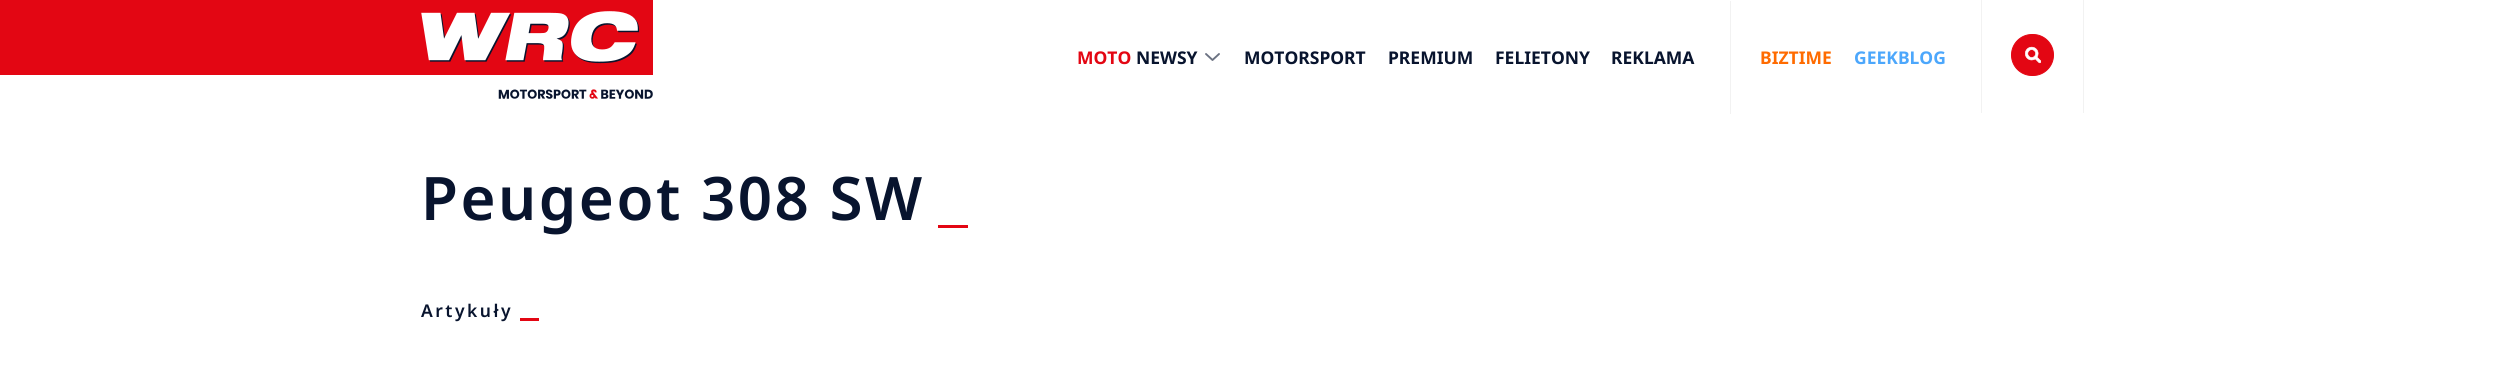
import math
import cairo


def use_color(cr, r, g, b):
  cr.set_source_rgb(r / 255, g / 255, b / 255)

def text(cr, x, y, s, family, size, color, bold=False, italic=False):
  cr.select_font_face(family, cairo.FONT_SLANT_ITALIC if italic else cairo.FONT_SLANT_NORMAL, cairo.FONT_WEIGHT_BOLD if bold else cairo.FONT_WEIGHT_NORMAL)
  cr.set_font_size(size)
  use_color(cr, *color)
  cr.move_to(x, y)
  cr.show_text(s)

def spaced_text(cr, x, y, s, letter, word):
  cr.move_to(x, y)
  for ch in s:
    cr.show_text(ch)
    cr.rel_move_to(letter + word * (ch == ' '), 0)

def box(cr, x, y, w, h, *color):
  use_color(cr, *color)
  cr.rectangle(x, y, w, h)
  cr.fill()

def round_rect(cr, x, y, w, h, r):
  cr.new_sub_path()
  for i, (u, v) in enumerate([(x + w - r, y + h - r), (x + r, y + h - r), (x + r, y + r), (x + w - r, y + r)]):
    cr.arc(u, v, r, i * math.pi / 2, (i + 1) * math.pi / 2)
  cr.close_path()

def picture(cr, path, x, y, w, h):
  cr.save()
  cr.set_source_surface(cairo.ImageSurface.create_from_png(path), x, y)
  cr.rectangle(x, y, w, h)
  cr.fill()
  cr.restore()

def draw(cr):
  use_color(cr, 255, 255, 255)
  cr.paint()
  box(cr, 0, 0, 653, 75, 227, 6, 19)
  picture(cr, "img_01.png", 421, 11, 232, 88)
  cr.new_path()
  cr.move_to(1219, 54)
  cr.line_to(1212.5, 60)
  cr.line_to(1206, 54)
  use_color(cr, 107, 114, 130)
  cr.set_line_width(1.9)
  cr.set_line_cap(cairo.LINE_CAP_ROUND)
  cr.set_line_join(cairo.LINE_JOIN_ROUND)
  cr.stroke()
  box(cr, 1730, 1, 1, 113, 242, 242, 242)
  box(cr, 1981, 0, 1, 113, 242, 242, 242)
  use_color(cr, 227, 6, 19)
  round_rect(cr, 2011.5, 34.5, 42, 41, 20.5)
  cr.fill_preserve()
  cr.set_line_width(1)
  cr.set_line_cap(cairo.LINE_CAP_BUTT)
  cr.set_line_join(cairo.LINE_JOIN_MITER)
  cr.stroke()
  picture(cr, "img_02.png", 2025, 46, 16, 18)
  box(cr, 2083, 0, 1, 113, 242, 242, 242)
  box(cr, 938, 225, 30, 3, 227, 6, 19)
  box(cr, 520, 318, 19, 3, 227, 6, 19)
  text(cr, 1077, 64, "MOTO", "Noto Sans", 17.5, (227, 6, 19), bold=True)
  text(cr, 1136, 64, "NEWSY", "Noto Sans", 17.5, (8, 20, 46), bold=True)
  text(cr, 1244, 64, "MOTORSPORT", "Noto Sans", 17.5, (8, 20, 46), bold=True)
  text(cr, 1388, 64, "PREMIUM", "Noto Sans", 17.5, (8, 20, 46), bold=True)
  text(cr, 1495, 64, "FELIETONY", "Noto Sans", 17.5, (8, 20, 46), bold=True)
  text(cr, 1611, 64, "REKLAMA", "Noto Sans", 17.5, (8, 20, 46), bold=True)
  text(cr, 1760, 64, "BIZTIME", "Noto Sans", 17.5, (255, 107, 0), bold=True)
  text(cr, 1854, 64, "GEEKBLOG", "Noto Sans", 17.5, (76, 167, 252), bold=True)
  cr.select_font_face("Noto Sans SemiBold")
  cr.set_font_size(60)
  use_color(cr, 8, 20, 46)
  spaced_text(cr, 421, 220, "Peugeot 308 SW", 2.5, 0)
  cr.set_font_size(17.5)
  spaced_text(cr, 421, 317, "Artykuły", 2.5, 0)


surface = cairo.ImageSurface(cairo.FORMAT_RGB24, 2504, 383)
cr = cairo.Context(surface)
options = cairo.FontOptions()
options.set_hint_metrics(cairo.HINT_METRICS_OFF)
options.set_hint_style(cairo.HINT_STYLE_NONE)
cr.set_font_options(options)
cr.set_miter_limit(4)
draw(cr)
surface.write_to_png("out.png")
